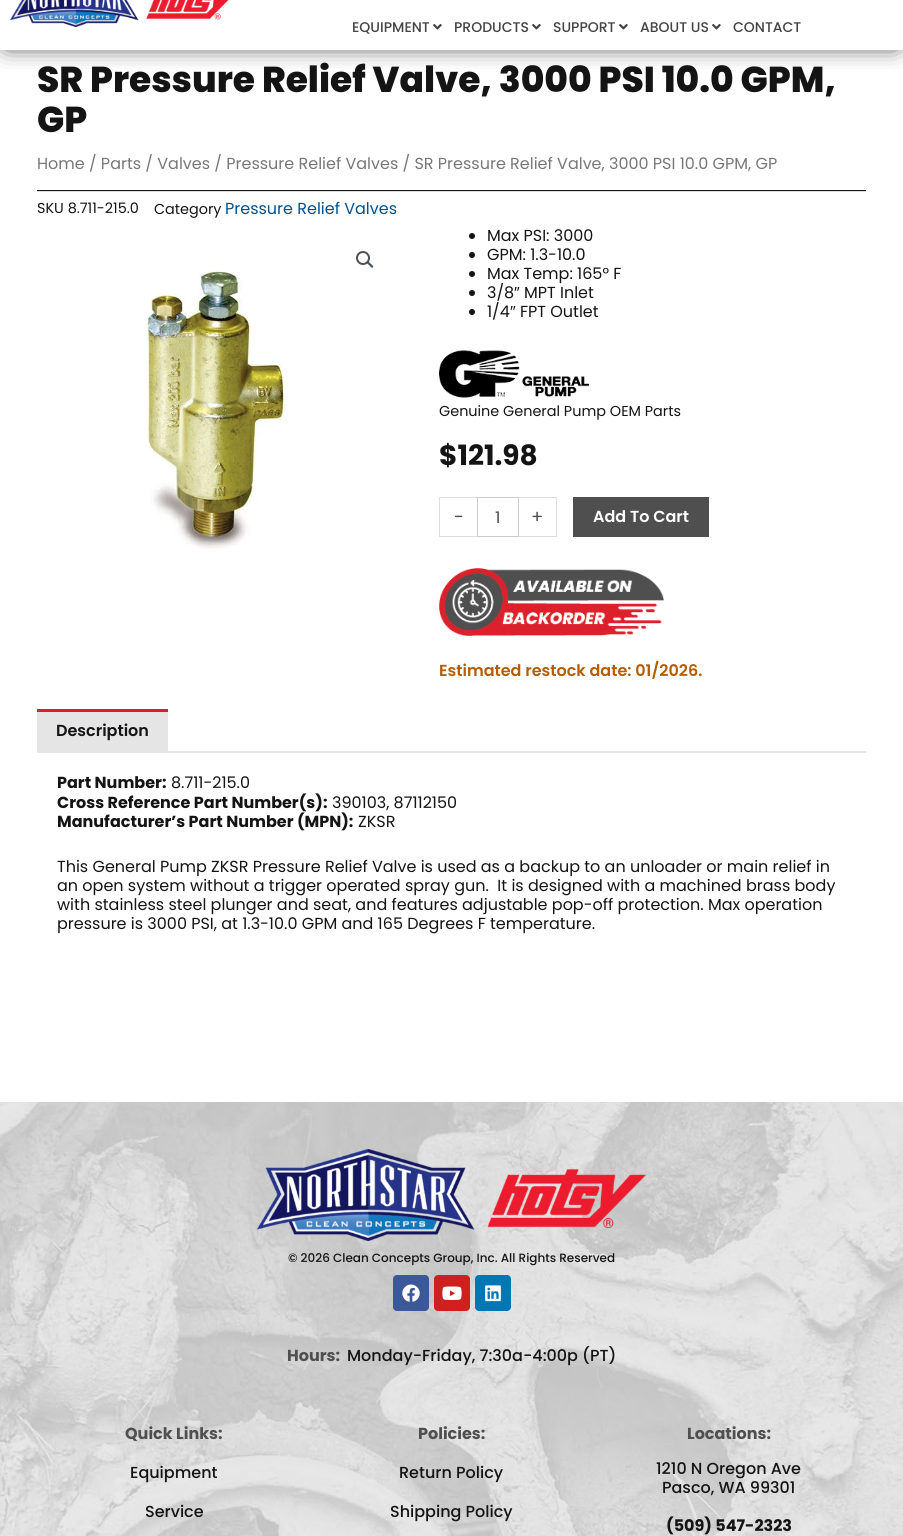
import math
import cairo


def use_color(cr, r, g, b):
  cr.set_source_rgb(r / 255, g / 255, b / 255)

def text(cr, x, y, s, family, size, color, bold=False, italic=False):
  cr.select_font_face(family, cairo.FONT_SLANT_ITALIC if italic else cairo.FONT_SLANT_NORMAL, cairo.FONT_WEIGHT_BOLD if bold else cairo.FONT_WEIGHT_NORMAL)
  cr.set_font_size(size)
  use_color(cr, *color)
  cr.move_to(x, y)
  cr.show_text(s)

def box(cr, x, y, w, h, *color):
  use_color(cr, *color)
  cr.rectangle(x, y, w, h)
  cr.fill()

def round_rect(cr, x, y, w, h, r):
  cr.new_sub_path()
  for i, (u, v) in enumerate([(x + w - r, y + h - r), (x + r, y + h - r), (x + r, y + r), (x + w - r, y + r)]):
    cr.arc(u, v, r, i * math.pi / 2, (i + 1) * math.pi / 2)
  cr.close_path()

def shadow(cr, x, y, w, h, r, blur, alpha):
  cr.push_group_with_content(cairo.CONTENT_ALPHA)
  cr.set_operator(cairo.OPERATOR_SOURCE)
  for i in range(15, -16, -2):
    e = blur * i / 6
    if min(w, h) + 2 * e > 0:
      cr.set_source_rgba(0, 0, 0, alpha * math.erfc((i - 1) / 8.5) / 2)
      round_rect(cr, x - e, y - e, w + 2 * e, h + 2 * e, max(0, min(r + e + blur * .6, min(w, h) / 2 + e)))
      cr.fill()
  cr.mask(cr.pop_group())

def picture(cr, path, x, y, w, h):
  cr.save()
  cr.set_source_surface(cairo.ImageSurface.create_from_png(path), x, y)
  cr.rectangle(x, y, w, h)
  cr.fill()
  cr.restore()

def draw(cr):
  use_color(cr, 255, 255, 255)
  cr.paint()
  cr.save()
  cr.rectangle(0, 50, 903, 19)
  cr.clip()
  use_color(cr, 0, 0, 0)
  shadow(cr, 7, -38, 889, 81, 0, 12.5, 1)
  cr.restore()
  picture(cr, "img_01.png", 10, 0, 219, 27)
  picture(cr, "img_02.png", 433, 24, 9, 6)
  picture(cr, "img_02.png", 532, 24, 9, 6)
  picture(cr, "img_02.png", 619, 24, 9, 6)
  picture(cr, "img_02.png", 712, 24, 9, 6)
  box(cr, 37, 190, 829, 1, 20, 20, 20)
  box(cr, 37, 191, 829, 1, 221, 221, 221)
  cr.arc(363, 258, 6, 0, 2 * math.pi)
  use_color(cr, 75, 79, 88)
  cr.stroke()
  cr.new_path()
  cr.move_to(367, 261.5)
  cr.curve_to(368.5, 260.5, 370, 263.5, 371, 264)
  cr.curve_to(371.5, 264.5, 374, 266, 373, 267.5)
  cr.curve_to(371.5, 268.5, 370, 266, 369.5, 265.5)
  cr.curve_to(368.5, 264.5, 366, 263, 367, 261.5)
  cr.close_path()
  cr.fill()
  picture(cr, "img_03.png", 146, 270, 142, 279)
  use_color(cr, 20, 20, 20)
  cr.arc(472, 236, 3, 0, 2 * math.pi)
  cr.fill()
  cr.arc(472, 255, 3, 0, 2 * math.pi)
  cr.fill()
  cr.arc(472, 274, 3, 0, 2 * math.pi)
  cr.fill()
  cr.arc(472, 293, 3, 0, 2 * math.pi)
  cr.fill()
  cr.arc(472, 312, 3, 0, 2 * math.pi)
  cr.fill()
  picture(cr, "img_04.png", 439, 350, 150, 48)
  box(cr, 439, 497, 38, 1, 221, 221, 221)
  box(cr, 439, 536, 38, 1, 221, 221, 221)
  box(cr, 439, 497, 1, 40, 221, 221, 221)
  cr.rectangle(477.5, 497.5, 41, 39)
  use_color(cr, 204, 204, 204)
  cr.set_line_width(1)
  cr.stroke()
  box(cr, 519, 497, 38, 1, 221, 221, 221)
  box(cr, 556, 497, 1, 40, 221, 221, 221)
  box(cr, 519, 536, 38, 1, 221, 221, 221)
  box(cr, 573, 497, 136, 40, 79, 79, 79)
  picture(cr, "img_05.png", 439, 568, 225, 68)
  box(cr, 37, 712, 131, 41, 229, 229, 229)
  box(cr, 37, 709, 131, 3, 219, 32, 42)
  box(cr, 168, 751, 698, 2, 229, 229, 229)
  picture(cr, "img_06.png", 0, 1102, 903, 434)
  picture(cr, "img_07.png", 257, 1149, 389, 92)
  use_color(cr, 59, 89, 152)
  round_rect(cr, 393, 1275, 36, 36, 4)
  cr.fill()
  picture(cr, "img_08.png", 402, 1284, 18, 18)
  use_color(cr, 205, 32, 31)
  round_rect(cr, 434, 1275, 36, 36, 4)
  cr.fill()
  picture(cr, "img_09.png", 442, 1286, 20, 14)
  use_color(cr, 0, 119, 181)
  round_rect(cr, 475, 1275, 36, 36, 4)
  cr.fill()
  picture(cr, "img_10.png", 485, 1285, 16, 17)
  text(cr, 352, 32, "EQUIPMENT", "Poppins Medium", 14, (68, 68, 68))
  text(cr, 454, 32, "PRODUCTS", "Poppins Medium", 14, (68, 68, 68))
  text(cr, 553, 32, "SUPPORT", "Poppins Medium", 14, (68, 68, 68))
  text(cr, 640, 32, "ABOUT US", "Poppins Medium", 14, (68, 68, 68))
  text(cr, 733, 32, "CONTACT", "Poppins Medium", 14, (68, 68, 68))
  text(cr, 37, 92, "SR Pressure Relief Valve, 3000 PSI 10.0 GPM,", "Poppins ExtraBold", 36, (20, 20, 20))
  text(cr, 37, 132, "GP", "Poppins ExtraBold", 36, (20, 20, 20))
  text(cr, 37, 169, "Home / Parts / Valves / Pressure Relief Valves / SR Pressure Relief Valve, 3000 PSI 10.0 GPM, GP", "Poppins", 16, (119, 119, 119))
  text(cr, 37, 213, "SKU 8.711-215.0", "Poppins", 14.4, (20, 20, 20))
  text(cr, 154, 214, "Category", "Poppins", 14.4, (20, 20, 20))
  text(cr, 225, 214, "Pressure Relief Valves", "Poppins", 16, (0, 81, 142))
  text(cr, 487, 241, "Max PSI: 3000", "Poppins", 16, (20, 20, 20))
  text(cr, 487, 260, "GPM: 1.3-10.0", "Poppins", 16, (20, 20, 20))
  text(cr, 487, 279, "Max Temp: 165° F", "Poppins", 16, (20, 20, 20))
  text(cr, 487, 298, "3/8", "Poppins", 16, (20, 20, 20))
  text(cr, 514, 298, "″", "Liberation Sans", 16, (20, 20, 20))
  text(cr, 524, 298, "MPT Inlet", "Poppins", 16, (20, 20, 20))
  text(cr, 487, 317, "1/4", "Poppins", 16, (20, 20, 20))
  text(cr, 510, 317, "″", "Liberation Sans", 16, (20, 20, 20))
  text(cr, 520, 317, "FPT Outlet", "Poppins", 16, (20, 20, 20))
  text(cr, 439, 416, "Genuine General Pump OEM Parts", "Poppins", 14.4, (20, 20, 20))
  text(cr, 439, 465, "$121.98", "Poppins", 28, (20, 20, 20), bold=True)
  text(cr, 454, 523, "-", "Poppins", 18, (75, 79, 88))
  text(cr, 495, 523, "1", "Poppins Medium", 16, (102, 102, 102))
  text(cr, 531, 523, "+", "Poppins", 18, (75, 79, 88))
  text(cr, 593, 522, "Add To Cart", "Poppins SemiBold", 16, (255, 255, 255))
  text(cr, 439, 676, "Estimated restock date: 01/2026.", "Poppins SemiBold", 16, (179, 92, 0))
  text(cr, 56, 736, "Description", "Poppins SemiBold", 16, (20, 20, 20))
  text(cr, 57, 788, "Part Number:", "Poppins", 16, (20, 20, 20), bold=True)
  text(cr, 171, 788, "8.711-215.0", "Poppins", 16, (20, 20, 20))
  text(cr, 57, 808, "Cross Reference Part Number(s):", "Poppins", 16, (20, 20, 20), bold=True)
  text(cr, 332, 808, "390103, 87112150", "Poppins", 16, (20, 20, 20))
  text(cr, 57, 827, "Manufacturer’s Part Number (MPN):", "Poppins", 16, (20, 20, 20), bold=True)
  text(cr, 358, 827, "ZKSR", "Poppins", 16, (20, 20, 20))
  text(cr, 57, 872, "This General Pump ZKSR Pressure Relief Valve is used as a backup to an unloader or main relief in", "Poppins", 16, (20, 20, 20))
  text(cr, 57, 891, "an open system without a trigger operated spray gun.  It is designed with a machined brass body", "Poppins", 16, (20, 20, 20))
  text(cr, 57, 910, "with stainless steel plunger and seat, and features adjustable pop-off protection. Max operation", "Poppins", 16, (20, 20, 20))
  text(cr, 57, 929, "pressure is 3000 PSI, at 1.3-10.0 GPM and 165 Degrees F temperature.", "Poppins", 16, (20, 20, 20))
  text(cr, 288, 1262, "© 2026 Clean Concepts Group, Inc. All Rights Reserved", "Poppins Medium", 12, (20, 20, 20))
  text(cr, 287, 1361, "Hours:", "Poppins", 16, (79, 79, 79), bold=True)
  text(cr, 347, 1361, "Monday-Friday, 7:30a-4:00p (PT)", "Poppins Medium", 16, (20, 20, 20))
  text(cr, 125, 1439, "Quick Links:", "Poppins", 16, (79, 79, 79), bold=True)
  text(cr, 130, 1478, "Equipment", "Poppins Medium", 16, (20, 20, 20))
  text(cr, 145, 1517, "Service", "Poppins Medium", 16, (20, 20, 20))
  text(cr, 418, 1439, "Policies:", "Poppins", 16, (79, 79, 79), bold=True)
  text(cr, 399, 1478, "Return Policy", "Poppins Medium", 16, (20, 20, 20))
  text(cr, 390, 1517, "Shipping Policy", "Poppins Medium", 16, (20, 20, 20))
  text(cr, 687, 1439, "Locations:", "Poppins", 16, (79, 79, 79), bold=True)
  text(cr, 656, 1474, "1210 N Oregon Ave", "Poppins Medium", 16, (20, 20, 20))
  text(cr, 662, 1493, "Pasco, WA 99301", "Poppins Medium", 16, (20, 20, 20))
  text(cr, 666, 1531, "(509) 547-2323", "Poppins", 16, (20, 20, 20), bold=True)


surface = cairo.ImageSurface(cairo.FORMAT_RGB24, 903, 1536)
cr = cairo.Context(surface)
options = cairo.FontOptions()
options.set_hint_metrics(cairo.HINT_METRICS_OFF)
options.set_hint_style(cairo.HINT_STYLE_NONE)
cr.set_font_options(options)
cr.set_miter_limit(4)
draw(cr)
surface.write_to_png("out.png")
